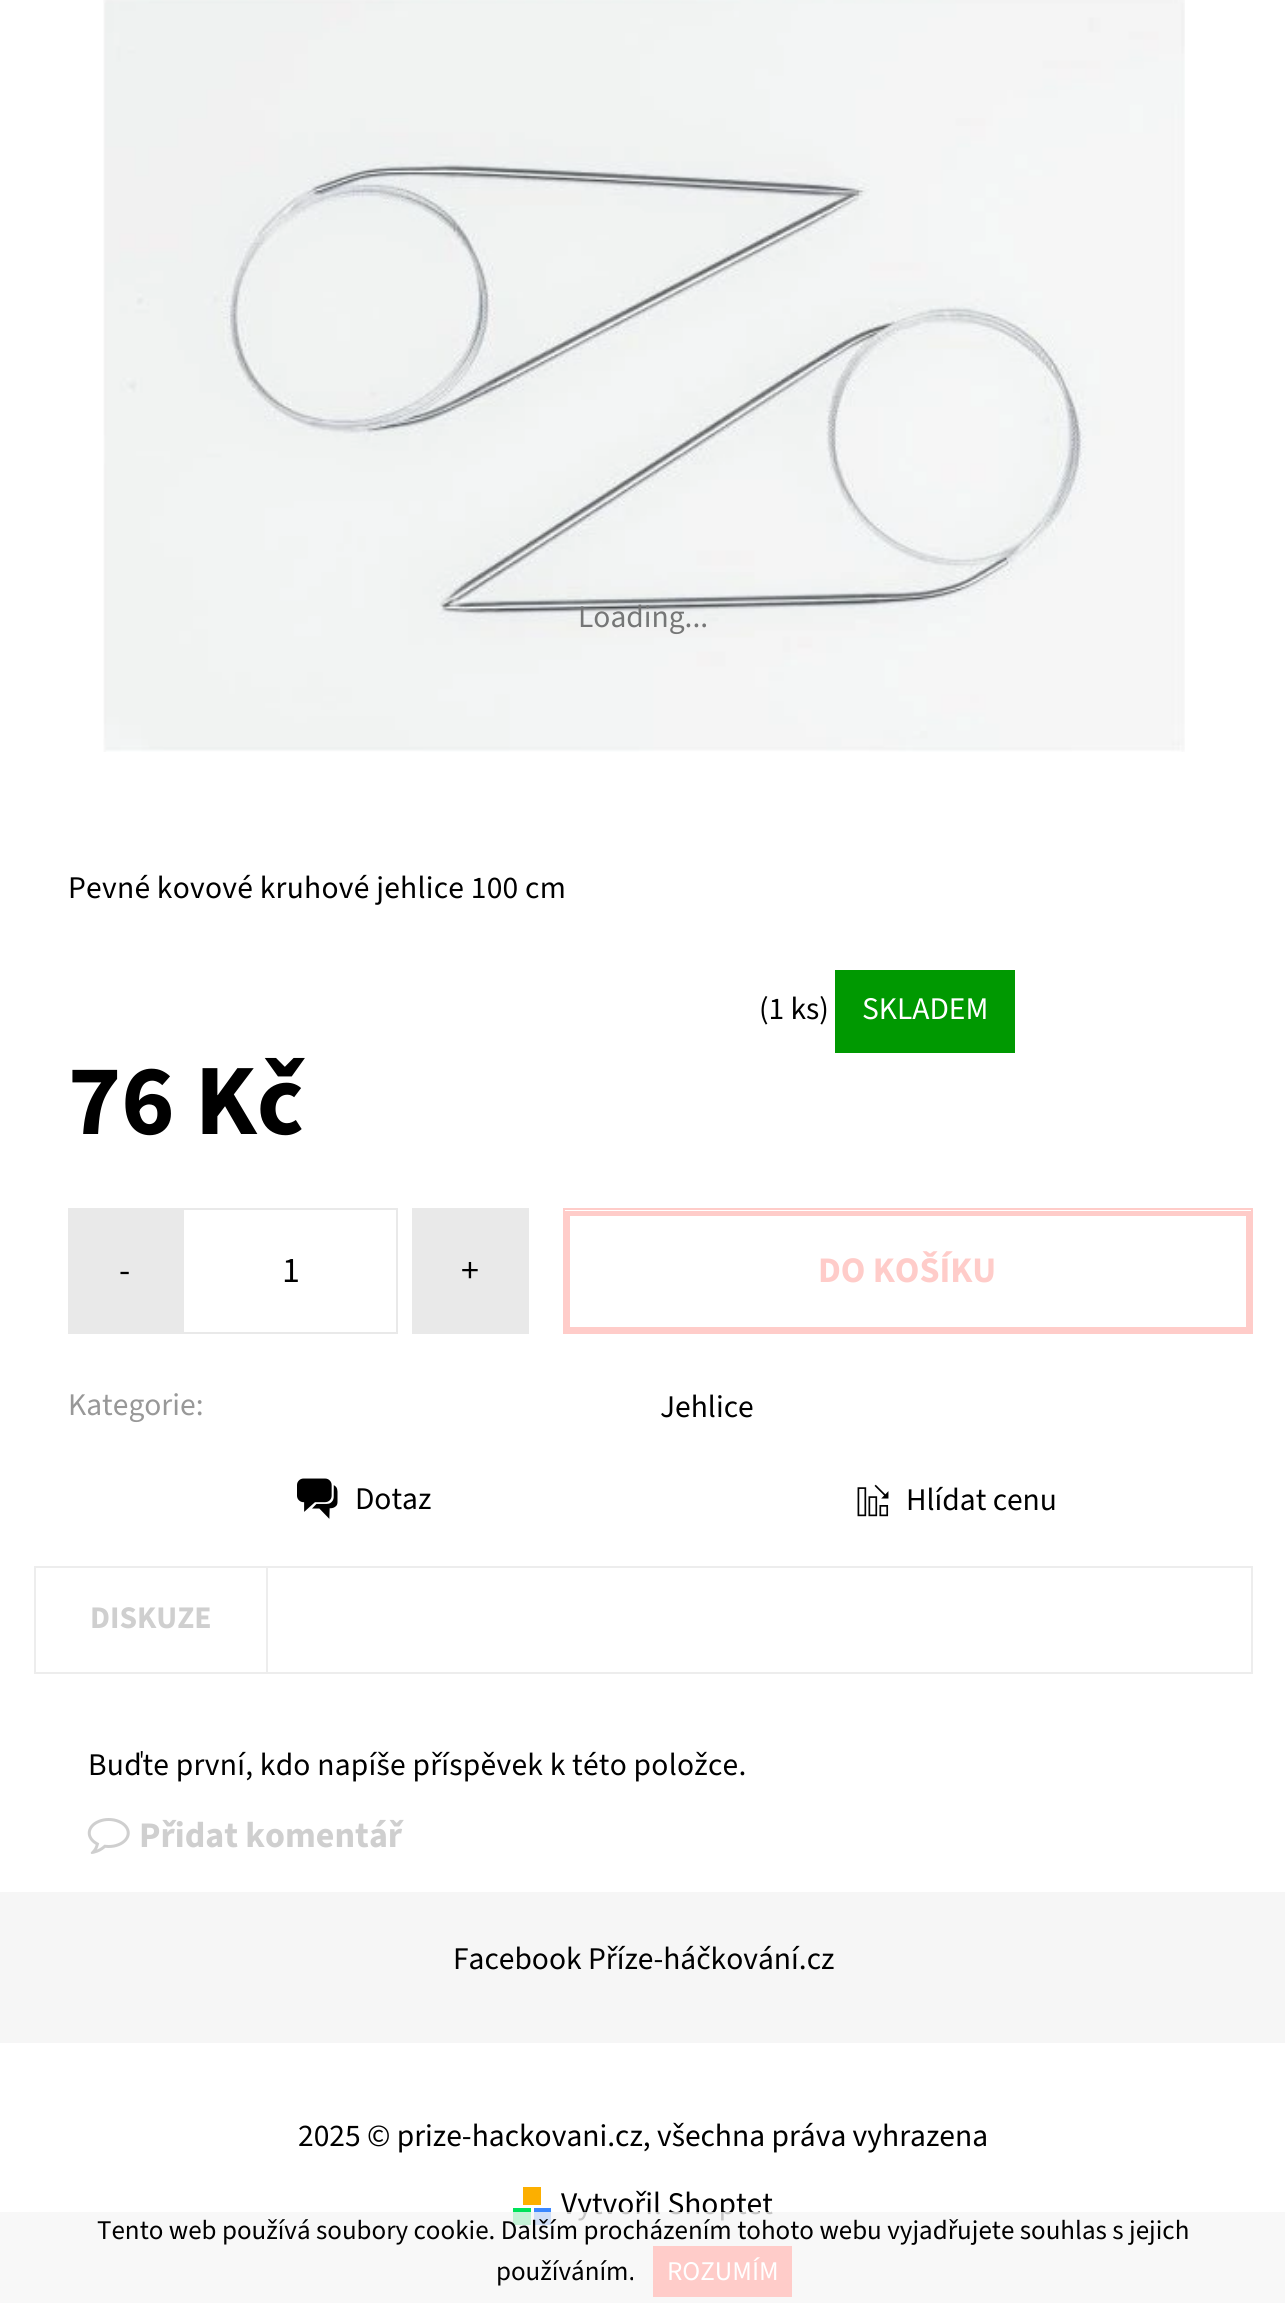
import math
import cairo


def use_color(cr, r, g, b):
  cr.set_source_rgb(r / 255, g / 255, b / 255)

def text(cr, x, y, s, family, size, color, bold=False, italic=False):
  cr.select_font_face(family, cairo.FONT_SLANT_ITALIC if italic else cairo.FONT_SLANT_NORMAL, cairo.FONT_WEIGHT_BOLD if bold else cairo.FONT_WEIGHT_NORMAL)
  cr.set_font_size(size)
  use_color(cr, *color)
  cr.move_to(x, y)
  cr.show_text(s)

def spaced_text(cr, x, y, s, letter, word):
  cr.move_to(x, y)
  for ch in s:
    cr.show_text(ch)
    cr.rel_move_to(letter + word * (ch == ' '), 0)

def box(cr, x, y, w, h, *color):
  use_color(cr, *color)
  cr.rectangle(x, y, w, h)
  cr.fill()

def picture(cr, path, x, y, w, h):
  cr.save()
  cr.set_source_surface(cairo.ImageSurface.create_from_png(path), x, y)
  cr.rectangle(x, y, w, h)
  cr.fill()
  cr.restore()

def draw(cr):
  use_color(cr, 255, 255, 255)
  cr.paint()
  picture(cr, "img_01.png", 103, 0, 1082, 752)
  box(cr, 835, 970, 180, 83, 0, 153, 1)
  box(cr, 68, 1208, 114, 126, 233, 233, 233)
  cr.rectangle(183, 1209, 214, 124)
  cr.stroke()
  box(cr, 412, 1208, 117, 126, 233, 233, 233)
  cr.rectangle(567.5, 1213.5, 681, 116)
  use_color(cr, 255, 204, 201)
  cr.set_line_width(5)
  cr.stroke()
  cr.rectangle(564, 1209, 688, 124)
  cr.set_line_width(2)
  cr.stroke()
  picture(cr, "img_02.png", 297, 1478, 41, 41)
  picture(cr, "img_03.png", 857, 1484, 32, 33)
  cr.rectangle(35, 1567, 1217, 106)
  use_color(cr, 237, 237, 237)
  cr.stroke()
  box(cr, 266, 1568, 2, 104, 237, 237, 237)
  picture(cr, "img_04.png", 87, 1818, 43, 36)
  box(cr, 0, 1892, 1285, 151, 246, 246, 246)
  box(cr, 523, 2187, 18, 18, 252, 175, 0)
  box(cr, 513, 2208, 18, 17, 0, 226, 90)
  box(cr, 534, 2208, 17, 17, 59, 136, 255)
  text(cr, 578, 627, "Loading...", "Source Sans 3", 31.5, (117, 118, 118))
  use_color(cr, 0, 0, 0)
  spaced_text(cr, 68, 898, "Pevné kovové kruhové jehlice 100 cm", 0.25, 0)
  text(cr, 759, 1019, "(1 ks)", "Source Sans 3", 31.5, (0, 0, 0))
  text(cr, 862, 1019, "SKLADEM", "Source Sans 3", 31.5, (255, 255, 255))
  text(cr, 68, 1134, "76 Kč", "Source Sans 3", 101, (0, 0, 0), bold=True)
  text(cr, 119, 1282, "-", "Source Sans 3", 36, (0, 0, 0))
  text(cr, 282, 1282, "1", "Source Sans 3", 36, (0, 0, 0))
  text(cr, 461, 1282, "+", "Source Sans 3", 36, (0, 0, 0))
  text(cr, 818, 1282, "DO KOŠÍKU", "Source Sans 3", 36, (255, 204, 201), bold=True)
  text(cr, 68, 1415, "Kategorie:", "Source Sans 3", 31.5, (152, 152, 152))
  text(cr, 660, 1417, "Jehlice", "Source Sans 3", 31.5, (0, 0, 0))
  text(cr, 355, 1509, "Dotaz", "Source Sans 3", 31.5, (0, 0, 0))
  text(cr, 906, 1510, "Hlídat cenu", "Source Sans 3", 31.5, (0, 0, 0))
  text(cr, 90, 1628, "DISKUZE", "Source Sans 3", 31.5, (207, 207, 207), bold=True)
  cr.select_font_face("Source Sans 3")
  use_color(cr, 0, 0, 0)
  spaced_text(cr, 88, 1775, "Buďte první, kdo napíše příspěvek k této položce.", 0.25, 0)
  text(cr, 139, 1847, "Přidat komentář", "Source Sans 3", 36, (207, 207, 207), bold=True)
  text(cr, 453, 1969, "Facebook Příze-háčkování.cz", "Source Sans 3", 31.5, (0, 0, 0))
  text(cr, 298, 2146, "2025 © prize-hackovani.cz, všechna práva vyhrazena", "Source Sans 3", 31.5, (0, 0, 0))
  text(cr, 561, 2214, "Vytvořil Shoptet", "Source Sans 3", 31.5, (0, 0, 0))
  cr.set_source_rgba(0.965, 0.965, 0.965, 0.8)
  cr.rectangle(0, 2212, 1285, 91)
  cr.fill()
  text(cr, 97, 2239, "Tento web používá soubory cookie. Dalším procházením tohoto webu vyjadřujete souhlas s jejich", "Source Sans 3", 27, (0, 0, 0))
  text(cr, 496, 2280, "používáním.", "Source Sans 3", 27, (0, 0, 0))
  box(cr, 653, 2246, 139, 51, 255, 204, 201)
  text(cr, 667, 2280, "ROZUMÍM", "Source Sans 3", 27, (255, 255, 255))


surface = cairo.ImageSurface(cairo.FORMAT_RGB24, 1285, 2303)
cr = cairo.Context(surface)
options = cairo.FontOptions()
options.set_hint_metrics(cairo.HINT_METRICS_OFF)
options.set_hint_style(cairo.HINT_STYLE_NONE)
cr.set_font_options(options)
cr.set_miter_limit(4)
draw(cr)
surface.write_to_png("out.png")
